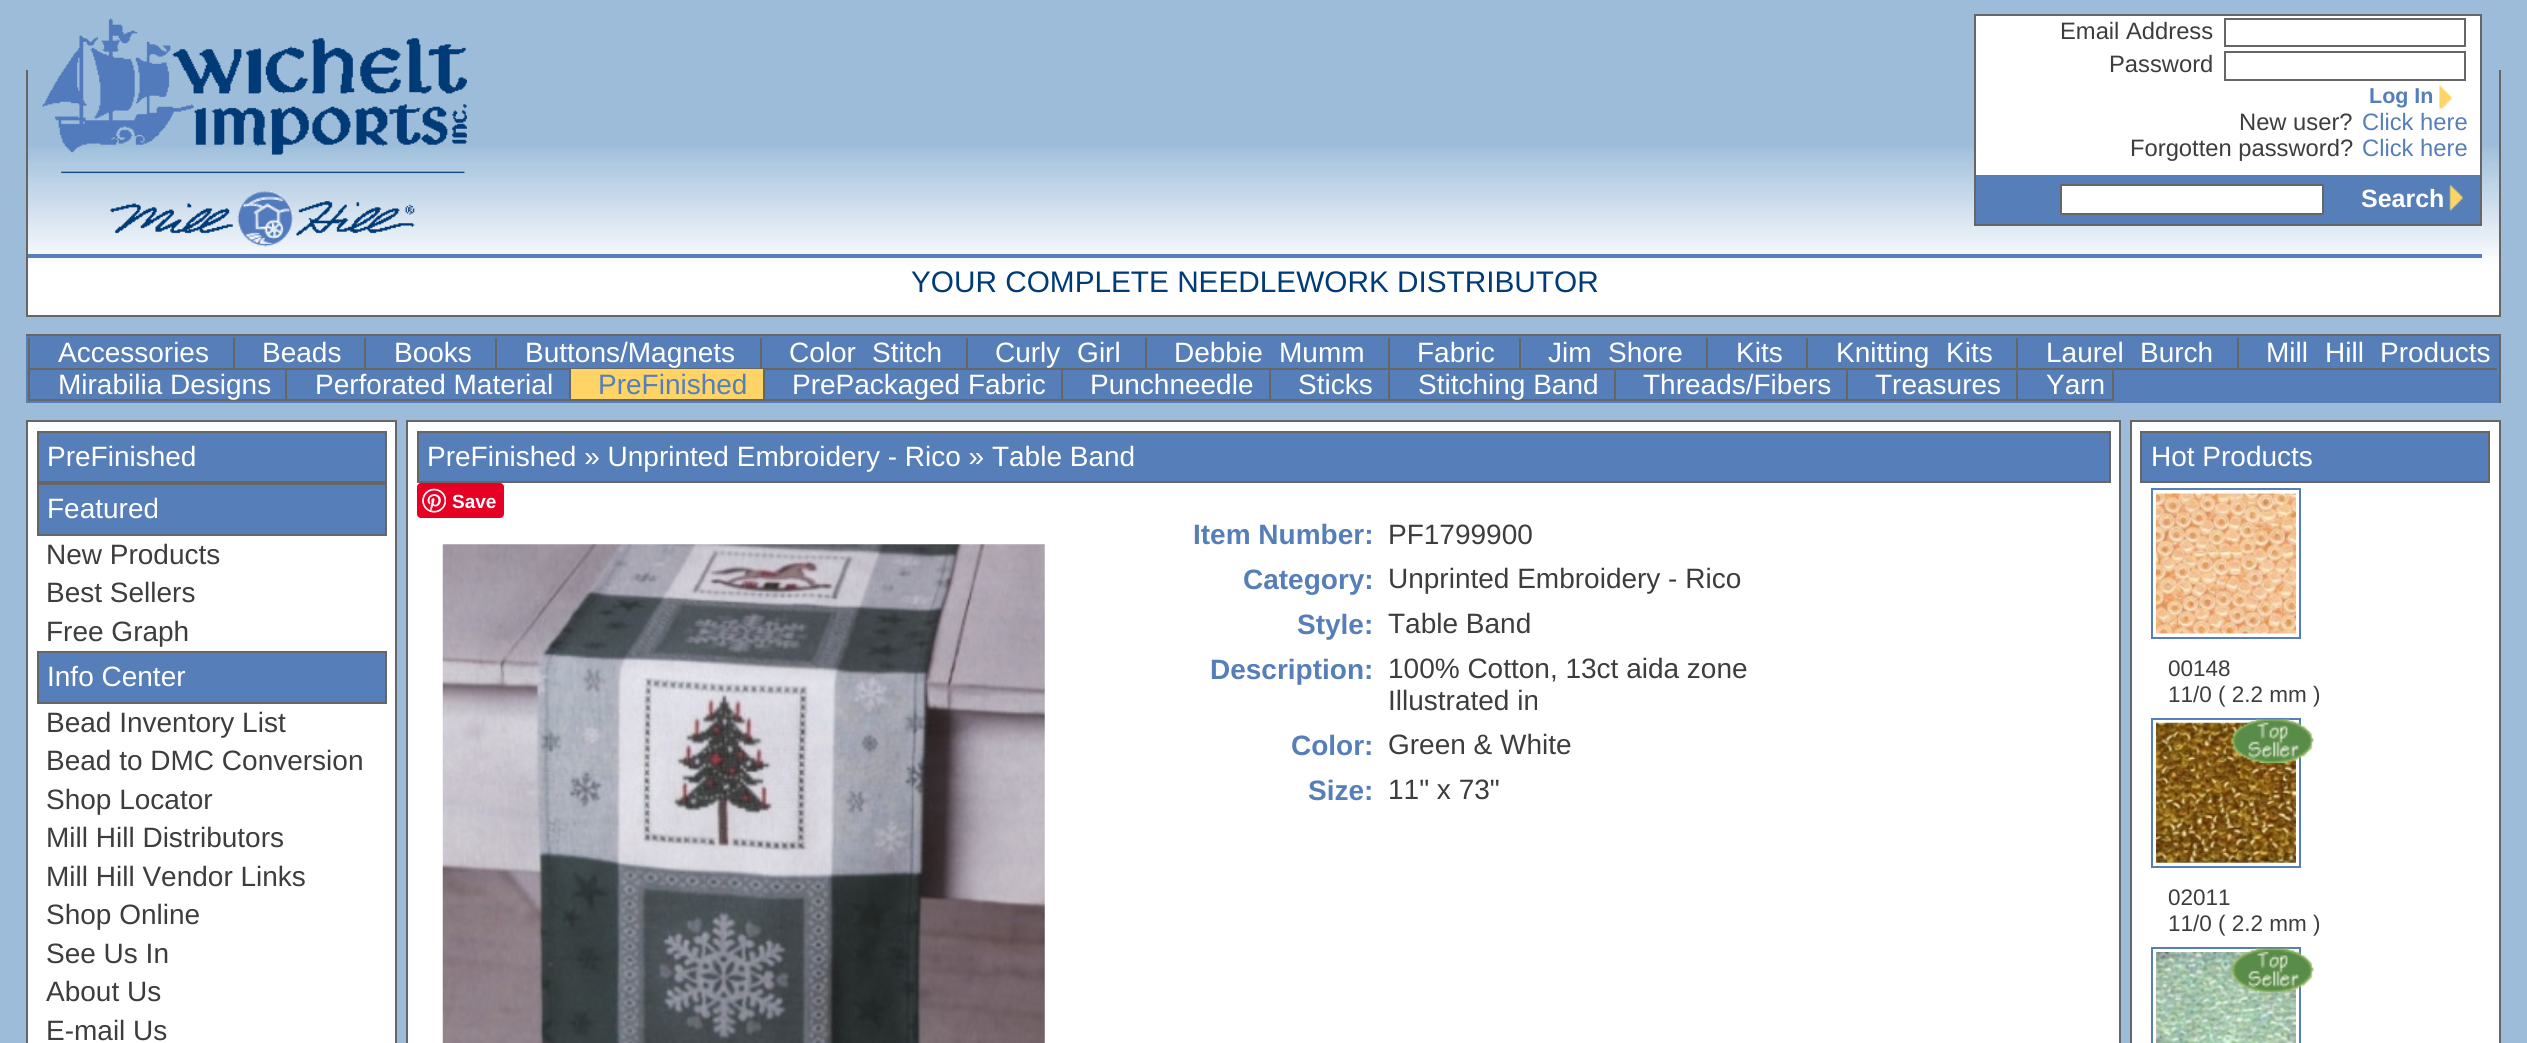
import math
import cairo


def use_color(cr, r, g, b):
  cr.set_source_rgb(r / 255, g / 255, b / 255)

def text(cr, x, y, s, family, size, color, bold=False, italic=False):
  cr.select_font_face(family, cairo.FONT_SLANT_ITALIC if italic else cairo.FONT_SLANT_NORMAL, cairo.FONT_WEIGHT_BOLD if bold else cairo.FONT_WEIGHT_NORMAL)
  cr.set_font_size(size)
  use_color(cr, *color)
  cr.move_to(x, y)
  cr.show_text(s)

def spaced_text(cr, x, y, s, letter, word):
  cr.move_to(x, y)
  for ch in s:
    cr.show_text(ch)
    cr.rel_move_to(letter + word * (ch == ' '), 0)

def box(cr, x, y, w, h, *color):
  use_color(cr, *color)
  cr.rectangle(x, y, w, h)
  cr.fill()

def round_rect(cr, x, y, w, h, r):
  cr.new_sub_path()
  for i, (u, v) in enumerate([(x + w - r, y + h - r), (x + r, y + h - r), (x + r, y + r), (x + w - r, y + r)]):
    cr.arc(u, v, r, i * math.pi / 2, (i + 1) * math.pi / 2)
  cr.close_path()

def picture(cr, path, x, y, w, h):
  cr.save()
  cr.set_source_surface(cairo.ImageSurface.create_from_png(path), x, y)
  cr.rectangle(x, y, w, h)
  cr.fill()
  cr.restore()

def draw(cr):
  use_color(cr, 156, 188, 218)
  cr.paint()
  picture(cr, "img_04.png", 28, 147, 2471, 168)
  picture(cr, "img_01.png", 42, 18, 425, 229)
  box(cr, 1976, 16, 504, 159, 255, 255, 255)
  cr.rectangle(1975, 15, 506, 210)
  use_color(cr, 102, 102, 102)
  cr.stroke()
  cr.rectangle(2225, 19, 240, 27)
  cr.stroke()
  cr.rectangle(2225, 52, 240, 28)
  cr.stroke()
  picture(cr, "img_02.png", 2439, 85, 13, 24)
  box(cr, 1976, 175, 504, 49, 86, 126, 185)
  use_color(cr, 255, 255, 255)
  cr.rectangle(2061, 185, 262, 29)
  cr.fill_preserve()
  use_color(cr, 102, 102, 102)
  cr.stroke()
  picture(cr, "img_03.png", 2449, 185, 14, 26)
  box(cr, 28, 254, 2454, 4, 86, 126, 185)
  box(cr, 2499, 70, 2, 247, 102, 102, 102)
  box(cr, 26, 315, 2475, 2, 102, 102, 102)
  box(cr, 26, 70, 2, 247, 102, 102, 102)
  box(cr, 26, 336, 2473, 67, 86, 126, 185)
  box(cr, 26, 334, 2475, 2, 102, 102, 102)
  box(cr, 2499, 334, 2, 69, 102, 102, 102)
  box(cr, 28, 368, 2469, 2, 102, 102, 102)
  box(cr, 28, 338, 2, 31, 102, 102, 102)
  box(cr, 233, 338, 2, 31, 102, 102, 102)
  box(cr, 364, 338, 2, 31, 102, 102, 102)
  box(cr, 495, 338, 2, 31, 102, 102, 102)
  box(cr, 760, 338, 2, 31, 102, 102, 102)
  box(cr, 966, 338, 2, 31, 102, 102, 102)
  box(cr, 1145, 338, 2, 31, 102, 102, 102)
  box(cr, 1388, 338, 2, 31, 102, 102, 102)
  box(cr, 1519, 338, 2, 31, 102, 102, 102)
  box(cr, 1706, 338, 2, 31, 102, 102, 102)
  box(cr, 1806, 338, 2, 31, 102, 102, 102)
  box(cr, 2016, 338, 2, 31, 102, 102, 102)
  box(cr, 2237, 338, 2, 31, 102, 102, 102)
  box(cr, 28, 399, 1988, 2, 102, 102, 102)
  box(cr, 28, 369, 2, 32, 102, 102, 102)
  box(cr, 285, 369, 2, 32, 102, 102, 102)
  box(cr, 571, 369, 192, 30, 254, 212, 102)
  box(cr, 569, 369, 2, 32, 102, 102, 102)
  box(cr, 763, 369, 2, 32, 102, 102, 102)
  box(cr, 1061, 369, 2, 32, 102, 102, 102)
  box(cr, 1269, 369, 2, 32, 102, 102, 102)
  box(cr, 1388, 369, 2, 32, 102, 102, 102)
  box(cr, 1614, 369, 2, 32, 102, 102, 102)
  box(cr, 1846, 369, 2, 32, 102, 102, 102)
  box(cr, 2112, 369, 2, 32, 102, 102, 102)
  box(cr, 2016, 399, 98, 2, 102, 102, 102)
  box(cr, 2016, 369, 2, 32, 102, 102, 102)
  use_color(cr, 255, 255, 255)
  cr.rectangle(27, 421, 369, 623)
  cr.fill_preserve()
  use_color(cr, 102, 102, 102)
  cr.stroke()
  use_color(cr, 86, 126, 185)
  cr.rectangle(38, 432, 348, 50)
  cr.fill_preserve()
  use_color(cr, 102, 102, 102)
  cr.stroke()
  use_color(cr, 86, 126, 185)
  cr.rectangle(38, 484, 348, 51)
  cr.fill_preserve()
  use_color(cr, 102, 102, 102)
  cr.stroke()
  use_color(cr, 86, 126, 185)
  cr.rectangle(38, 652, 348, 51)
  cr.fill_preserve()
  use_color(cr, 102, 102, 102)
  cr.stroke()
  use_color(cr, 255, 255, 255)
  cr.rectangle(407, 421, 1713, 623)
  cr.fill_preserve()
  use_color(cr, 102, 102, 102)
  cr.stroke()
  use_color(cr, 86, 126, 185)
  cr.rectangle(418, 432, 1692, 50)
  cr.fill_preserve()
  use_color(cr, 102, 102, 102)
  cr.stroke()
  use_color(cr, 230, 0, 35)
  round_rect(cr, 417, 483, 87, 35, 4)
  cr.fill()
  picture(cr, "img_05.png", 422, 488, 24, 25)
  picture(cr, "img_06.png", 442, 544, 603, 499)
  use_color(cr, 255, 255, 255)
  cr.rectangle(2131, 421, 369, 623)
  cr.fill_preserve()
  use_color(cr, 102, 102, 102)
  cr.stroke()
  use_color(cr, 86, 126, 185)
  cr.rectangle(2141, 432, 348, 50)
  cr.fill_preserve()
  use_color(cr, 102, 102, 102)
  cr.stroke()
  cr.rectangle(2152, 489, 148, 149)
  use_color(cr, 86, 126, 185)
  cr.stroke()
  picture(cr, "img_07.png", 2156, 493, 140, 141)
  cr.rectangle(2152, 719, 148, 148)
  cr.stroke()
  picture(cr, "img_08.png", 2156, 722, 140, 141)
  picture(cr, "img_09.png", 2230, 718, 84, 45)
  cr.rectangle(2152, 948, 148, 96)
  cr.stroke()
  picture(cr, "img_10.png", 2156, 952, 140, 91)
  picture(cr, "img_11.png", 2230, 948, 84, 45)
  text(cr, 2060, 39, "Email Address", "Liberation Sans", 23.75, (61, 61, 61))
  text(cr, 2109, 72, "Password", "Liberation Sans", 23.75, (61, 61, 61))
  text(cr, 2369, 103, "Log In", "Liberation Sans", 21.5, (86, 126, 185), bold=True)
  text(cr, 2239, 130, "New user?", "Liberation Sans", 23.75, (61, 61, 61))
  text(cr, 2362, 130, "Click here", "Liberation Sans", 23.75, (86, 126, 185))
  text(cr, 2130, 156, "Forgotten password?", "Liberation Sans", 23.75, (61, 61, 61))
  text(cr, 2362, 156, "Click here", "Liberation Sans", 23.75, (86, 126, 185))
  text(cr, 2361, 207, "Search", "Liberation Sans", 25, (255, 255, 255), bold=True)
  text(cr, 911, 292, "YOUR COMPLETE NEEDLEWORK DISTRIBUTOR", "Liberation Sans", 29.75, (0, 59, 119))
  text(cr, 58, 362, "Accessories", "Liberation Sans", 28, (255, 255, 255))
  text(cr, 262, 362, "Beads", "Liberation Sans", 28, (255, 255, 255))
  text(cr, 394, 362, "Books", "Liberation Sans", 28, (255, 255, 255))
  text(cr, 525, 362, "Buttons/Magnets", "Liberation Sans", 28, (255, 255, 255))
  text(cr, 789, 362, "Color", "Liberation Sans", 28, (255, 255, 255))
  text(cr, 872, 362, "Stitch", "Liberation Sans", 28, (255, 255, 255))
  spaced_text(cr, 995, 362, "Curly Girl", 0, 9)
  text(cr, 1174, 362, "Debbie", "Liberation Sans", 28, (255, 255, 255))
  text(cr, 1279, 362, "Mumm", "Liberation Sans", 28, (255, 255, 255))
  text(cr, 1417, 362, "Fabric", "Liberation Sans", 28, (255, 255, 255))
  text(cr, 1548, 362, "Jim", "Liberation Sans", 28, (255, 255, 255))
  text(cr, 1608, 362, "Shore", "Liberation Sans", 28, (255, 255, 255))
  text(cr, 1736, 362, "Kits", "Liberation Sans", 28, (255, 255, 255))
  text(cr, 1836, 362, "Knitting", "Liberation Sans", 28, (255, 255, 255))
  text(cr, 1946, 362, "Kits", "Liberation Sans", 28, (255, 255, 255))
  text(cr, 2046, 362, "Laurel", "Liberation Sans", 28, (255, 255, 255))
  text(cr, 2140, 362, "Burch", "Liberation Sans", 28, (255, 255, 255))
  text(cr, 2266, 362, "Mill", "Liberation Sans", 28, (255, 255, 255))
  text(cr, 2325, 362, "Hill", "Liberation Sans", 28, (255, 255, 255))
  text(cr, 2380, 362, "Products", "Liberation Sans", 28, (255, 255, 255))
  text(cr, 58, 394, "Mirabilia Designs", "Liberation Sans", 28, (255, 255, 255))
  text(cr, 315, 394, "Perforated Material", "Liberation Sans", 28, (255, 255, 255))
  text(cr, 598, 394, "PreFinished", "Liberation Sans", 28, (86, 126, 185))
  text(cr, 792, 394, "PrePackaged Fabric", "Liberation Sans", 28, (255, 255, 255))
  text(cr, 1090, 394, "Punchneedle", "Liberation Sans", 28, (255, 255, 255))
  text(cr, 1298, 394, "Sticks", "Liberation Sans", 28, (255, 255, 255))
  text(cr, 1418, 394, "Stitching Band", "Liberation Sans", 28, (255, 255, 255))
  text(cr, 1643, 394, "Threads/Fibers", "Liberation Sans", 28, (255, 255, 255))
  text(cr, 1875, 394, "Treasures", "Liberation Sans", 28, (255, 255, 255))
  text(cr, 2046, 394, "Yarn", "Liberation Sans", 28, (255, 255, 255))
  text(cr, 47, 466, "PreFinished", "Liberation Sans", 28, (255, 255, 255))
  text(cr, 47, 518, "Featured", "Liberation Sans", 28, (255, 255, 255))
  text(cr, 46, 564, "New Products", "Liberation Sans", 28, (61, 61, 61))
  text(cr, 46, 602, "Best Sellers", "Liberation Sans", 28, (61, 61, 61))
  text(cr, 46, 641, "Free Graph", "Liberation Sans", 28, (61, 61, 61))
  text(cr, 47, 686, "Info Center", "Liberation Sans", 28, (255, 255, 255))
  text(cr, 46, 732, "Bead Inventory List", "Liberation Sans", 28, (61, 61, 61))
  text(cr, 46, 770, "Bead to DMC Conversion", "Liberation Sans", 28, (61, 61, 61))
  text(cr, 46, 809, "Shop Locator", "Liberation Sans", 28, (61, 61, 61))
  text(cr, 46, 847, "Mill Hill Distributors", "Liberation Sans", 28, (61, 61, 61))
  text(cr, 46, 886, "Mill Hill Vendor Links", "Liberation Sans", 28, (61, 61, 61))
  text(cr, 46, 924, "Shop Online", "Liberation Sans", 28, (61, 61, 61))
  text(cr, 46, 963, "See Us In", "Liberation Sans", 28, (61, 61, 61))
  text(cr, 46, 1001, "About Us", "Liberation Sans", 28, (61, 61, 61))
  text(cr, 46, 1040, "E-mail Us", "Liberation Sans", 28, (61, 61, 61))
  text(cr, 427, 466, "PreFinished » Unprinted Embroidery - Rico » Table Band", "Liberation Sans", 28, (255, 255, 255))
  text(cr, 452, 508, "Save", "Liberation Sans", 19, (255, 255, 255), bold=True)
  text(cr, 1193, 544, "Item Number:", "Liberation Sans", 28, (86, 126, 185), bold=True)
  text(cr, 1388, 544, "PF1799900", "Liberation Sans", 28, (61, 61, 61))
  text(cr, 1243, 589, "Category:", "Liberation Sans", 28, (86, 126, 185), bold=True)
  text(cr, 1388, 588, "Unprinted Embroidery - Rico", "Liberation Sans", 28, (61, 61, 61))
  text(cr, 1297, 634, "Style:", "Liberation Sans", 28, (86, 126, 185), bold=True)
  text(cr, 1388, 633, "Table Band", "Liberation Sans", 28, (61, 61, 61))
  text(cr, 1210, 679, "Description:", "Liberation Sans", 28, (86, 126, 185), bold=True)
  text(cr, 1388, 678, "100% Cotton, 13ct aida zone", "Liberation Sans", 28, (61, 61, 61))
  text(cr, 1388, 710, "Illustrated in", "Liberation Sans", 28, (61, 61, 61))
  text(cr, 1291, 755, "Color:", "Liberation Sans", 28, (86, 126, 185), bold=True)
  text(cr, 1388, 754, "Green & White", "Liberation Sans", 28, (61, 61, 61))
  text(cr, 1308, 800, "Size:", "Liberation Sans", 28, (86, 126, 185), bold=True)
  text(cr, 1388, 799, "11\" x 73\"", "Liberation Sans", 28, (61, 61, 61))
  text(cr, 2151, 466, "Hot Products", "Liberation Sans", 28, (255, 255, 255))
  text(cr, 2168, 676, "00148", "Liberation Sans", 22.5, (61, 61, 61))
  text(cr, 2168, 702, "11/0 ( 2.2 mm )", "Liberation Sans", 22.5, (61, 61, 61))
  text(cr, 2168, 905, "02011", "Liberation Sans", 22.5, (61, 61, 61))
  text(cr, 2168, 931, "11/0 ( 2.2 mm )", "Liberation Sans", 22.5, (61, 61, 61))


surface = cairo.ImageSurface(cairo.FORMAT_RGB24, 2527, 1043)
cr = cairo.Context(surface)
options = cairo.FontOptions()
options.set_hint_metrics(cairo.HINT_METRICS_OFF)
options.set_hint_style(cairo.HINT_STYLE_NONE)
cr.set_font_options(options)
cr.set_miter_limit(4)
draw(cr)
surface.write_to_png("out.png")
